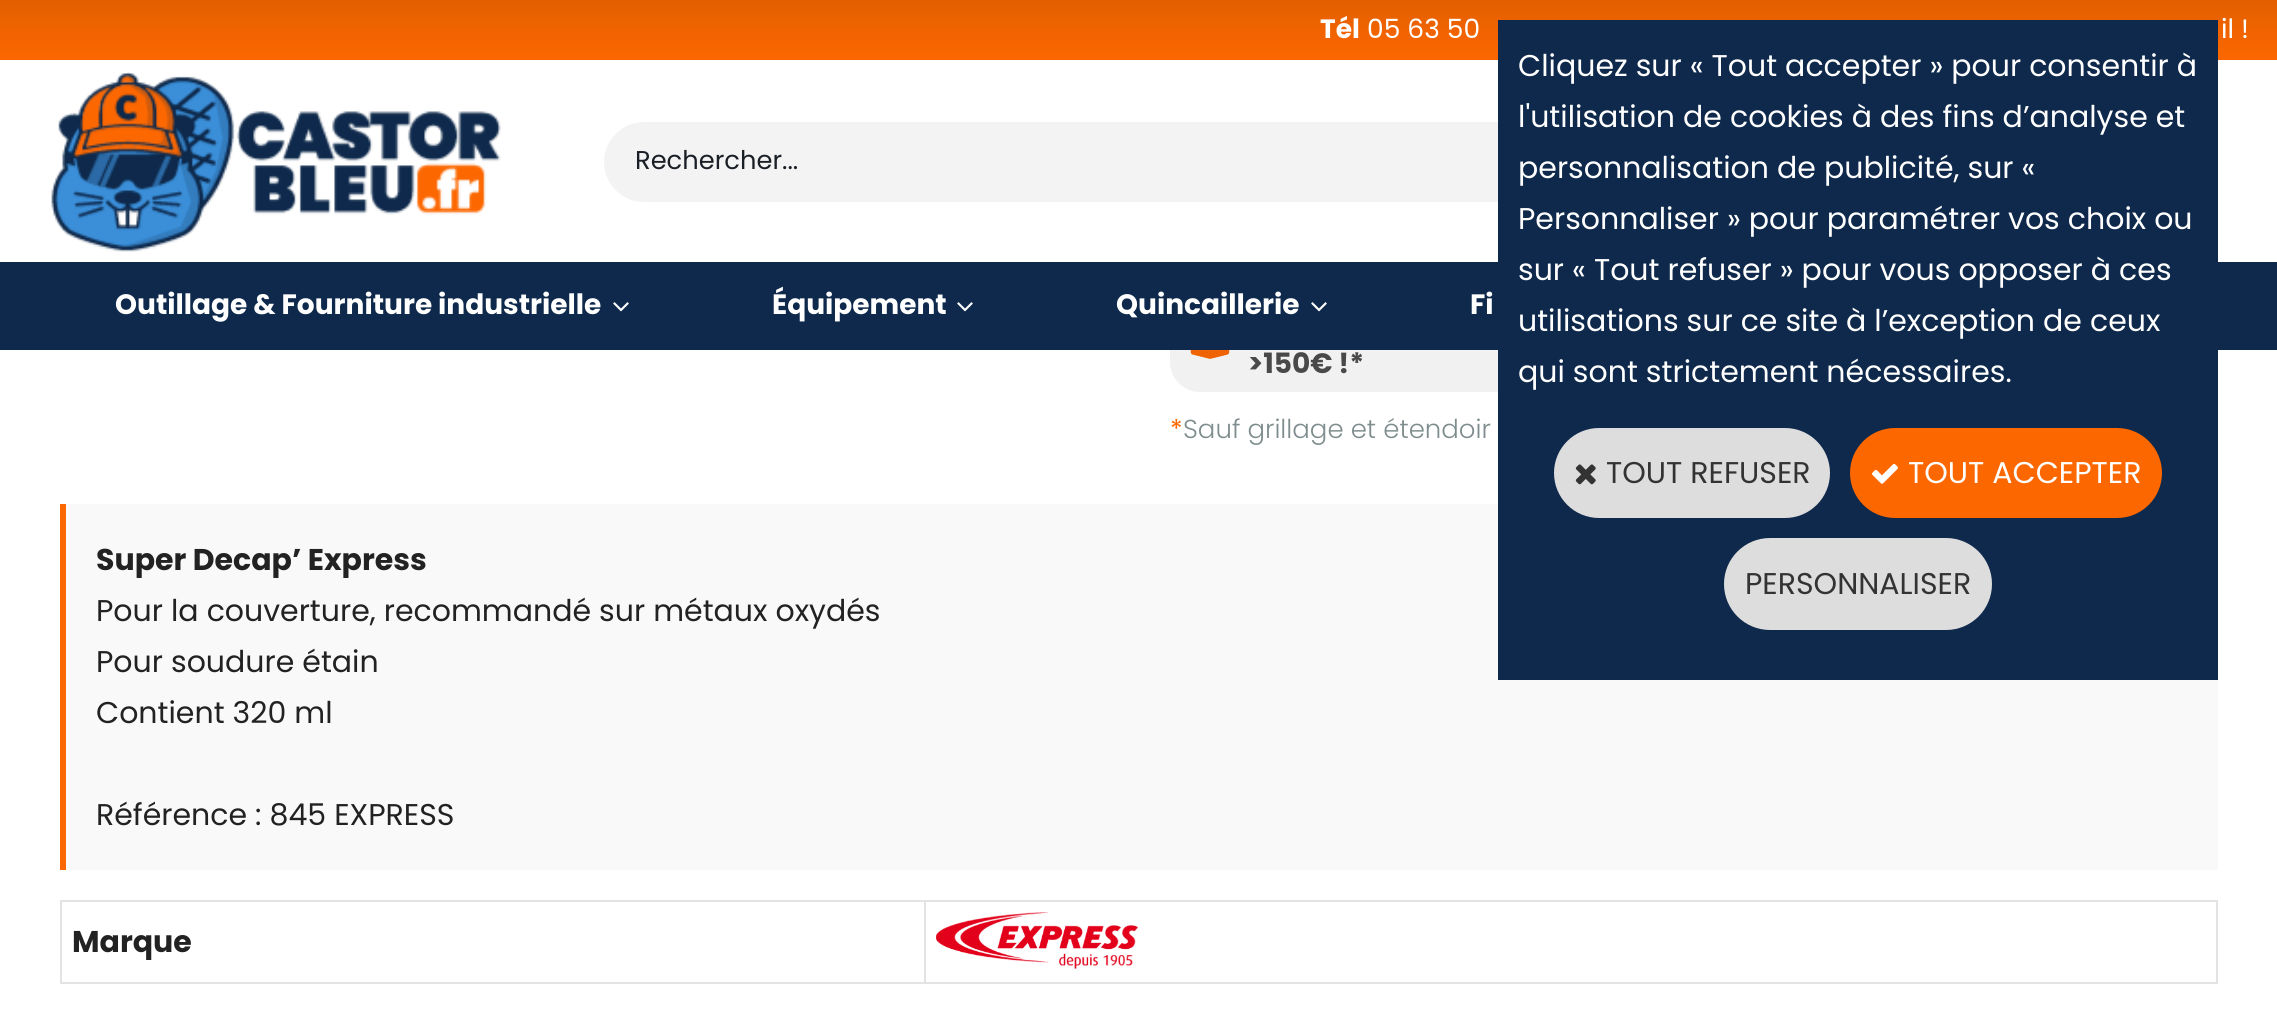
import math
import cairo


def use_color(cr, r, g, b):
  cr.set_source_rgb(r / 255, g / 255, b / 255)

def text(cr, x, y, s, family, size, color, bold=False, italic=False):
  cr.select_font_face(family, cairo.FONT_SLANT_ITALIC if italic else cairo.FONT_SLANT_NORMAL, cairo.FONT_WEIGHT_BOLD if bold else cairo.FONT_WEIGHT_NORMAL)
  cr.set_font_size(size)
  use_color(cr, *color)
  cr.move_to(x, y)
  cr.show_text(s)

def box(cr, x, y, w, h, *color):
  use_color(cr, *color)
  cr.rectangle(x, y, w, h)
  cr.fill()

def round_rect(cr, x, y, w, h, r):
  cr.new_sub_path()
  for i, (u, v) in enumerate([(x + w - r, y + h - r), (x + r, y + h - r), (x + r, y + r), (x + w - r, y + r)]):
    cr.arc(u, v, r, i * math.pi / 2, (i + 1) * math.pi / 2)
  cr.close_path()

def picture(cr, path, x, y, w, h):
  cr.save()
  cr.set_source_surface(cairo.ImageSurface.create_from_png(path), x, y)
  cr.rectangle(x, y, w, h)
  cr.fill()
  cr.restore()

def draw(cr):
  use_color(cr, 255, 255, 255)
  cr.paint()
  gradient = cairo.LinearGradient(1139, 0, 1139, 60)
  gradient.add_color_stop_rgba(0, 0.89, 0.373, 0, 1)
  gradient.add_color_stop_rgba(1, 0.988, 0.404, 0, 1)
  cr.set_source(gradient)
  cr.rectangle(0, 0, 2277, 60)
  cr.fill()
  picture(cr, "img_01.png", 51, 71, 450, 181)
  use_color(cr, 243, 243, 244)
  cr.new_path()
  cr.move_to(644, 122)
  cr.line_to(1574, 122)
  cr.line_to(1574, 202)
  cr.line_to(644, 202)
  cr.curve_to(622, 202, 604, 184, 604, 162)
  cr.curve_to(604, 140, 622, 122, 644, 122)
  cr.close_path()
  cr.fill()
  use_color(cr, 241, 241, 241)
  round_rect(cr, 1170, 290, 618, 102, 30)
  cr.fill()
  box(cr, 0, 262, 2277, 88, 14, 41, 75)
  picture(cr, "img_02.png", 613, 302, 16, 10)
  picture(cr, "img_02.png", 957, 302, 16, 10)
  picture(cr, "img_02.png", 1311, 302, 16, 10)
  picture(cr, "img_03.png", 1190, 350, 40, 9)
  box(cr, 66, 504, 2152, 366, 249, 249, 249)
  box(cr, 60, 504, 6, 366, 252, 103, 0)
  box(cr, 60, 900, 2158, 2, 227, 227, 227)
  box(cr, 60, 982, 864, 2, 227, 227, 227)
  box(cr, 60, 902, 2, 82, 227, 227, 227)
  box(cr, 2216, 902, 2, 82, 227, 227, 227)
  box(cr, 924, 982, 1294, 2, 227, 227, 227)
  box(cr, 924, 902, 2, 82, 227, 227, 227)
  picture(cr, "img_04.png", 936, 912, 202, 57)
  box(cr, 1498, 20, 720, 660, 14, 41, 75)
  use_color(cr, 221, 221, 221)
  round_rect(cr, 1554, 428, 276, 90, 45)
  cr.fill()
  picture(cr, "img_05.png", 1575, 464, 21, 21)
  use_color(cr, 252, 103, 0)
  round_rect(cr, 1850, 428, 312, 90, 45)
  cr.fill()
  picture(cr, "img_06.png", 1872, 463, 26, 21)
  use_color(cr, 221, 221, 221)
  round_rect(cr, 1724, 538, 268, 92, 46)
  cr.fill()
  text(cr, 1320, 38, "Tél", "Poppins", 26.5, (255, 255, 255), bold=True)
  text(cr, 1367, 38, "05 63 50", "Poppins", 26.5, (255, 255, 255))
  text(cr, 2221, 38, "il !", "Poppins", 26.5, (255, 255, 255))
  text(cr, 635, 169, "Rechercher...", "Poppins", 25.75, (26, 31, 38))
  text(cr, 115, 314, "Outillage & Fourniture industrielle", "Poppins", 28, (255, 255, 255), bold=True)
  text(cr, 772, 314, "Équipement", "Poppins", 28, (255, 255, 255), bold=True)
  text(cr, 1116, 314, "Quincaillerie", "Poppins", 28, (255, 255, 255), bold=True)
  text(cr, 1470, 314, "Fi", "Poppins", 28, (255, 255, 255), bold=True)
  text(cr, 1248, 373, ">150€ !*", "Poppins", 28, (73, 73, 73), bold=True)
  text(cr, 1170, 438, "*", "Poppins", 26, (252, 103, 0))
  text(cr, 1183, 438, "Sauf grillage et étendoir", "Poppins Light", 26, (126, 140, 141))
  text(cr, 96, 570, "Super Decap’ Express", "Poppins", 30, (34, 34, 34), bold=True)
  text(cr, 96, 621, "Pour la couverture, recommandé sur métaux oxydés", "Poppins", 30, (34, 34, 34))
  text(cr, 96, 672, "Pour soudure étain", "Poppins", 30, (34, 34, 34))
  text(cr, 96, 723, "Contient 320 ml", "Poppins", 30, (34, 34, 34))
  text(cr, 96, 825, "Référence : 845 EXPRESS", "Poppins", 30, (34, 34, 34))
  text(cr, 72, 952, "Marque", "Poppins", 30, (34, 34, 34), bold=True)
  text(cr, 1518, 76, "Cliquez sur « Tout accepter » pour consentir à", "Poppins", 30, (255, 255, 255))
  text(cr, 1518, 127, "l'utilisation de cookies à des fins d’analyse et", "Poppins", 30, (255, 255, 255))
  text(cr, 1518, 178, "personnalisation de publicité, sur «", "Poppins", 30, (255, 255, 255))
  text(cr, 1518, 229, "Personnaliser » pour paramétrer vos choix ou", "Poppins", 30, (255, 255, 255))
  text(cr, 1518, 280, "sur « Tout refuser » pour vous opposer à ces", "Poppins", 30, (255, 255, 255))
  text(cr, 1518, 331, "utilisations sur ce site à l’exception de ceux", "Poppins", 30, (255, 255, 255))
  text(cr, 1518, 382, "qui sont strictement nécessaires.", "Poppins", 30, (255, 255, 255))
  text(cr, 1606, 483, "TOUT REFUSER", "Poppins", 30, (51, 51, 51))
  text(cr, 1908, 483, "TOUT ACCEPTER", "Poppins", 30, (255, 255, 255))
  text(cr, 1745, 594, "PERSONNALISER", "Poppins", 30, (51, 51, 51))


surface = cairo.ImageSurface(cairo.FORMAT_RGB24, 2277, 1026)
cr = cairo.Context(surface)
options = cairo.FontOptions()
options.set_hint_metrics(cairo.HINT_METRICS_OFF)
options.set_hint_style(cairo.HINT_STYLE_NONE)
cr.set_font_options(options)
cr.set_miter_limit(4)
draw(cr)
surface.write_to_png("out.png")
